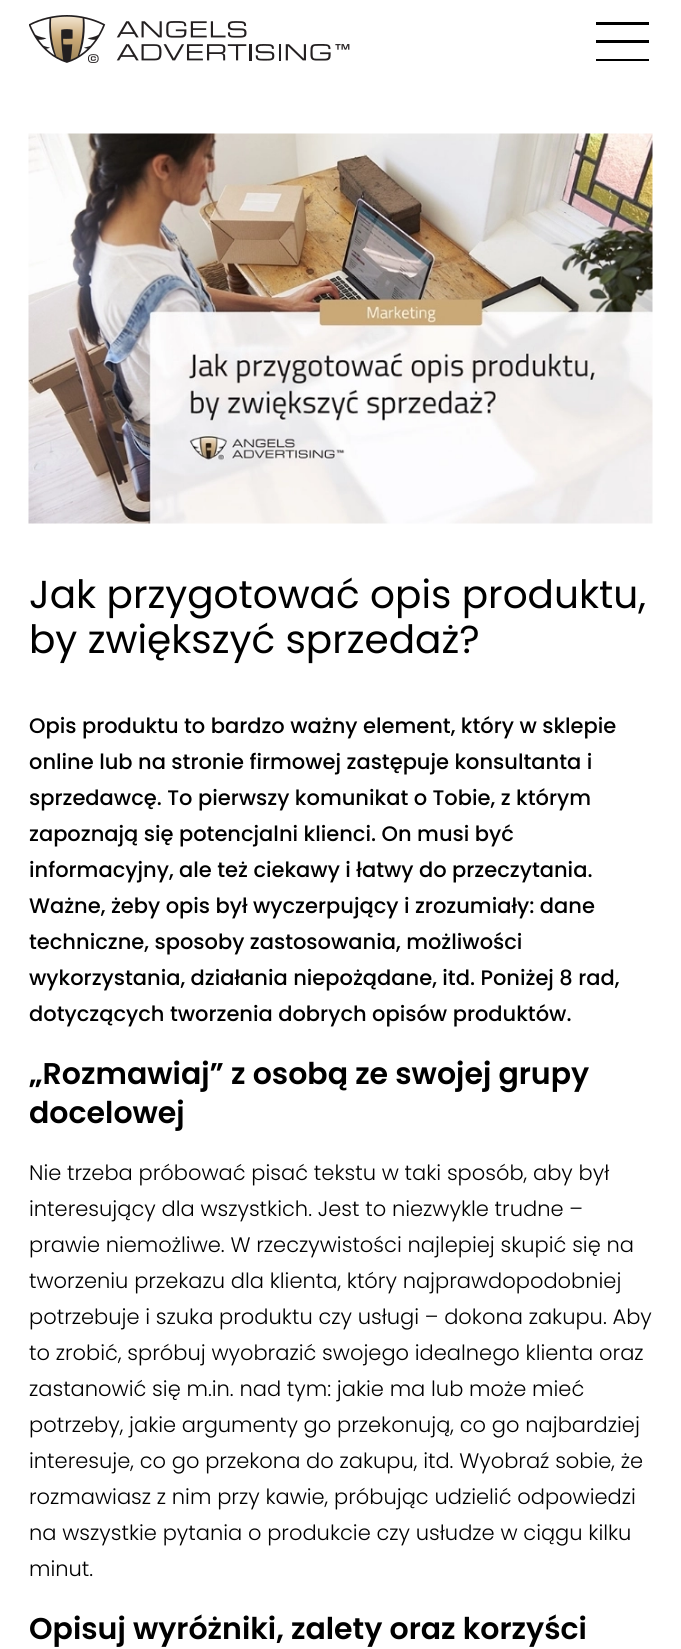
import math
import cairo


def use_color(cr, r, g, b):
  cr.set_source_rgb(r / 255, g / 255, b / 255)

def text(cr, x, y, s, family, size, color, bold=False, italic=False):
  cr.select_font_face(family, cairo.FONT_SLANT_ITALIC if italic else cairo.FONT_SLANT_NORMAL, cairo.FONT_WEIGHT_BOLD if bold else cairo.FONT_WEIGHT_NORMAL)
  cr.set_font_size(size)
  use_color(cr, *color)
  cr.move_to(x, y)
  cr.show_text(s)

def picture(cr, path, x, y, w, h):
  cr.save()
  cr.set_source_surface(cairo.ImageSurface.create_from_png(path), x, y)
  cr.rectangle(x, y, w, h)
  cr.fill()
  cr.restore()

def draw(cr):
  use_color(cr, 255, 255, 255)
  cr.paint()
  picture(cr, "img_01.png", 29, 15, 321, 48)
  use_color(cr, 0, 0, 0)
  cr.new_path()
  cr.move_to(596, 22)
  cr.line_to(649, 22)
  cr.line_to(649, 25)
  cr.line_to(596, 25)
  cr.close_path()
  cr.move_to(596, 40)
  cr.line_to(649, 40)
  cr.line_to(649, 43)
  cr.line_to(596, 43)
  cr.close_path()
  cr.move_to(596, 59)
  cr.line_to(649, 59)
  cr.line_to(649, 61)
  cr.line_to(596, 61)
  cr.close_path()
  cr.fill()
  picture(cr, "img_02.png", 28, 133, 625, 391)
  text(cr, 29, 608, "Jak przygotować opis produktu,", "Poppins", 39, (0, 0, 0))
  text(cr, 29, 653, "by zwiększyć sprzedaż?", "Poppins", 39, (0, 0, 0))
  text(cr, 29, 733, "Opis produktu to bardzo ważny element, który w sklepie", "Poppins Medium", 21, (0, 0, 0))
  text(cr, 29, 769, "online lub na stronie firmowej zastępuje konsultanta i", "Poppins Medium", 21, (0, 0, 0))
  text(cr, 29, 805, "sprzedawcę. To pierwszy komunikat o Tobie, z którym", "Poppins Medium", 21, (0, 0, 0))
  text(cr, 29, 841, "zapoznają się potencjalni klienci. On musi być", "Poppins Medium", 21, (0, 0, 0))
  text(cr, 29, 877, "informacyjny, ale też ciekawy i łatwy do przeczytania.", "Poppins Medium", 21, (0, 0, 0))
  text(cr, 29, 913, "Ważne, żeby opis był wyczerpujący i zrozumiały: dane", "Poppins Medium", 21, (0, 0, 0))
  text(cr, 29, 949, "techniczne, sposoby zastosowania, możliwości", "Poppins Medium", 21, (0, 0, 0))
  text(cr, 29, 985, "wykorzystania, działania niepożądane, itd. Poniżej 8 rad,", "Poppins Medium", 21, (0, 0, 0))
  text(cr, 29, 1021, "dotyczących tworzenia dobrych opisów produktów.", "Poppins Medium", 21, (0, 0, 0))
  text(cr, 29, 1084, "„Rozmawiaj” z osobą ze swojej grupy", "Poppins SemiBold", 30, (0, 0, 0))
  text(cr, 29, 1123, "docelowej", "Poppins SemiBold", 30, (0, 0, 0))
  text(cr, 29, 1180, "Nie trzeba próbować pisać tekstu w taki sposób, aby był", "Poppins Light", 21, (0, 0, 0))
  text(cr, 29, 1216, "interesujący dla wszystkich. Jest to niezwykle trudne –", "Poppins Light", 21, (0, 0, 0))
  text(cr, 29, 1252, "prawie niemożliwe. W rzeczywistości najlepiej skupić się na", "Poppins Light", 21, (0, 0, 0))
  text(cr, 29, 1288, "tworzeniu przekazu dla klienta, który najprawdopodobniej", "Poppins Light", 21, (0, 0, 0))
  text(cr, 29, 1324, "potrzebuje i szuka produktu czy usługi – dokona zakupu. Aby", "Poppins Light", 21, (0, 0, 0))
  text(cr, 29, 1360, "to zrobić, spróbuj wyobrazić swojego idealnego klienta oraz", "Poppins Light", 21, (0, 0, 0))
  text(cr, 29, 1396, "zastanowić się m.in. nad tym: jakie ma lub może mieć", "Poppins Light", 21, (0, 0, 0))
  text(cr, 29, 1432, "potrzeby, jakie argumenty go przekonują, co go najbardziej", "Poppins Light", 21, (0, 0, 0))
  text(cr, 29, 1468, "interesuje, co go przekona do zakupu, itd. Wyobraź sobie, że", "Poppins Light", 21, (0, 0, 0))
  text(cr, 29, 1504, "rozmawiasz z nim przy kawie, próbując udzielić odpowiedzi", "Poppins Light", 21, (0, 0, 0))
  text(cr, 29, 1540, "na wszystkie pytania o produkcie czy usłudze w ciągu kilku", "Poppins Light", 21, (0, 0, 0))
  text(cr, 29, 1576, "minut.", "Poppins Light", 21, (0, 0, 0))
  text(cr, 29, 1639, "Opisuj wyróżniki, zalety oraz korzyści", "Poppins SemiBold", 30, (0, 0, 0))


surface = cairo.ImageSurface(cairo.FORMAT_RGB24, 681, 1649)
cr = cairo.Context(surface)
options = cairo.FontOptions()
options.set_hint_metrics(cairo.HINT_METRICS_OFF)
options.set_hint_style(cairo.HINT_STYLE_NONE)
cr.set_font_options(options)
cr.set_miter_limit(4)
draw(cr)
surface.write_to_png("out.png")
